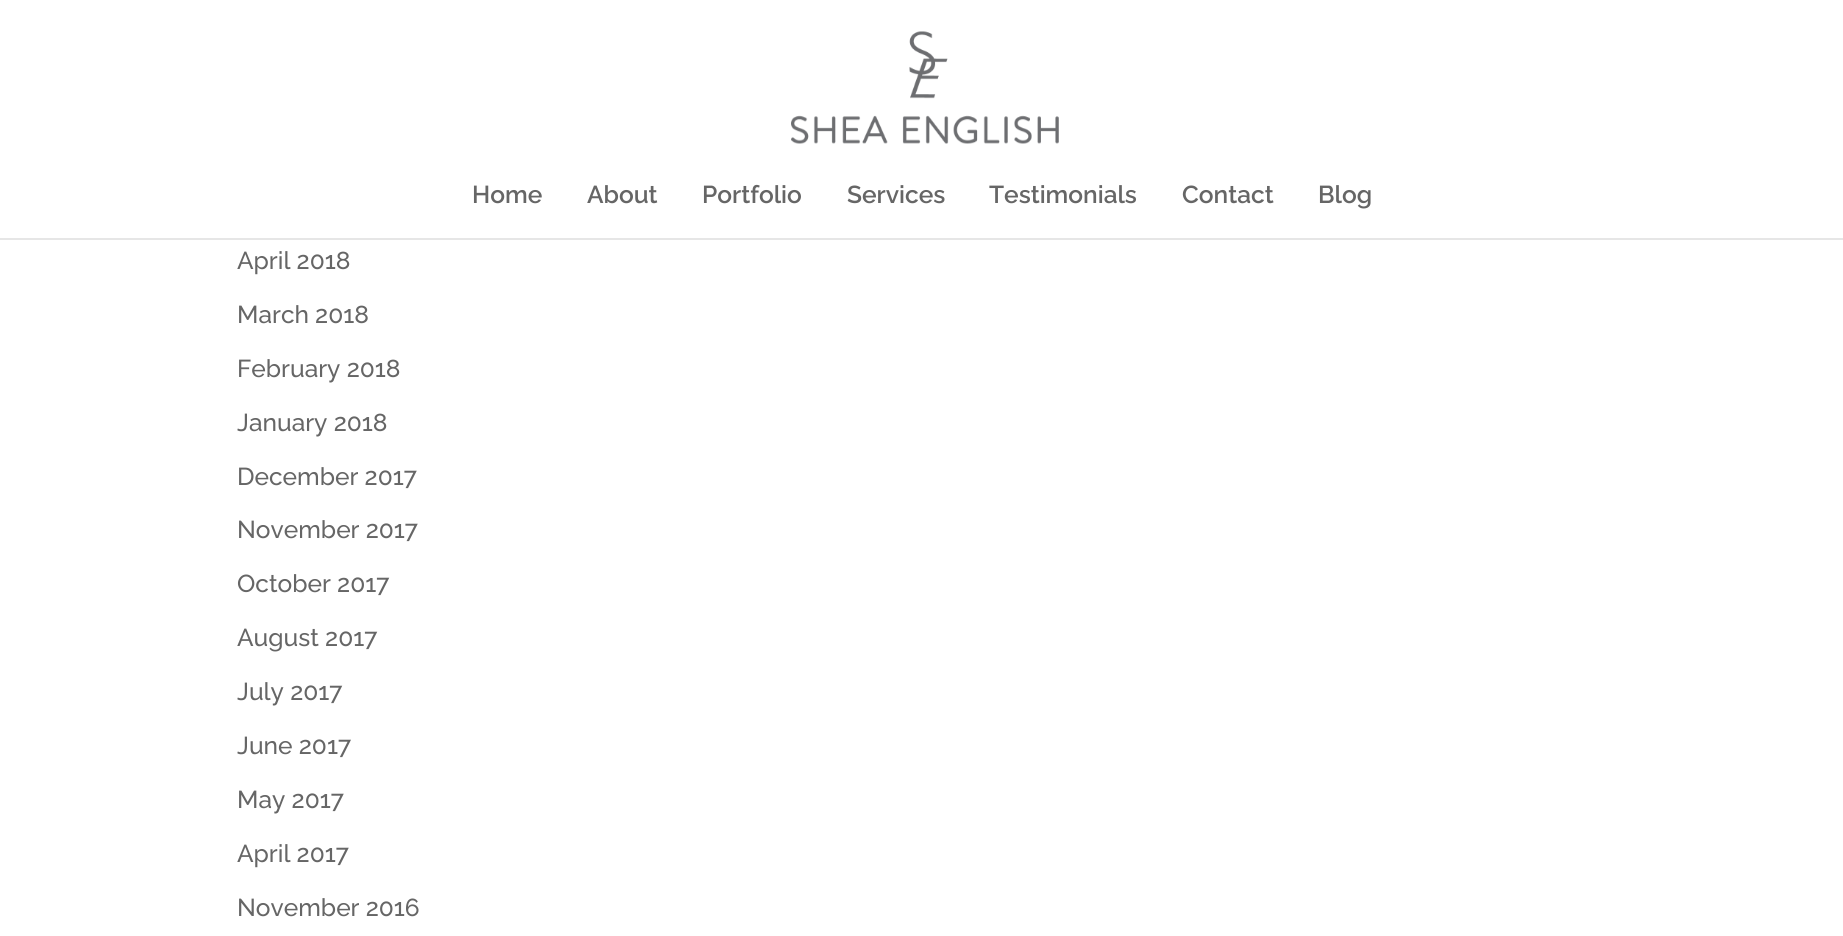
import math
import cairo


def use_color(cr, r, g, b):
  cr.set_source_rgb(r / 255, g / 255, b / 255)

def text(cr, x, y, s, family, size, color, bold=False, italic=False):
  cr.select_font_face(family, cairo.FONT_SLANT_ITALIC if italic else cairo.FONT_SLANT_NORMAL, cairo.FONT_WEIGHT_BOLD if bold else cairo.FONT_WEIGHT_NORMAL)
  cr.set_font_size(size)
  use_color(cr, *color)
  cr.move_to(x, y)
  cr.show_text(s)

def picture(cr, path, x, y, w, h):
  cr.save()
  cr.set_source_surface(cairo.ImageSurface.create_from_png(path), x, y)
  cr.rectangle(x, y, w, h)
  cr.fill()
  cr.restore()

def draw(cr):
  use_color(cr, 255, 255, 255)
  cr.paint()
  use_color(cr, 230, 230, 230)
  cr.new_path()
  cr.move_to(0, 238)
  cr.line_to(0, 240)
  cr.line_to(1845, 240)
  cr.line_to(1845, 2)
  cr.line_to(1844, 2)
  cr.line_to(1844, 238)
  cr.close_path()
  cr.fill()
  picture(cr, "img_01.png", 791, 31, 268, 113)
  text(cr, 472, 203, "Home", "Raleway SemiBold", 24.5, (102, 102, 102))
  text(cr, 587, 203, "About", "Raleway SemiBold", 24.5, (102, 102, 102))
  text(cr, 702, 203, "Portfolio", "Raleway SemiBold", 24.5, (102, 102, 102))
  text(cr, 847, 203, "Services", "Raleway SemiBold", 24.5, (102, 102, 102))
  text(cr, 989, 203, "Testimonials", "Raleway SemiBold", 24.5, (102, 102, 102))
  text(cr, 1182, 203, "Contact", "Raleway SemiBold", 24.5, (102, 102, 102))
  text(cr, 1318, 203, "Blog", "Raleway SemiBold", 24.5, (102, 102, 102))
  text(cr, 237, 269, "April 2018", "Raleway Medium", 24.5, (102, 102, 102))
  text(cr, 237, 323, "March 2018", "Raleway Medium", 24.5, (102, 102, 102))
  text(cr, 237, 377, "February 2018", "Raleway Medium", 24.5, (102, 102, 102))
  text(cr, 237, 431, "January 2018", "Raleway Medium", 24.5, (102, 102, 102))
  text(cr, 237, 485, "December 2017", "Raleway Medium", 24.5, (102, 102, 102))
  text(cr, 237, 538, "November 2017", "Raleway Medium", 24.5, (102, 102, 102))
  text(cr, 237, 592, "October 2017", "Raleway Medium", 24.5, (102, 102, 102))
  text(cr, 237, 646, "August 2017", "Raleway Medium", 24.5, (102, 102, 102))
  text(cr, 237, 700, "July 2017", "Raleway Medium", 24.5, (102, 102, 102))
  text(cr, 237, 754, "June 2017", "Raleway Medium", 24.5, (102, 102, 102))
  text(cr, 237, 808, "May 2017", "Raleway Medium", 24.5, (102, 102, 102))
  text(cr, 237, 862, "April 2017", "Raleway Medium", 24.5, (102, 102, 102))
  text(cr, 237, 916, "November 2016", "Raleway Medium", 24.5, (102, 102, 102))


surface = cairo.ImageSurface(cairo.FORMAT_RGB24, 1843, 936)
cr = cairo.Context(surface)
options = cairo.FontOptions()
options.set_hint_metrics(cairo.HINT_METRICS_OFF)
options.set_hint_style(cairo.HINT_STYLE_NONE)
cr.set_font_options(options)
cr.set_miter_limit(4)
draw(cr)
surface.write_to_png("out.png")
